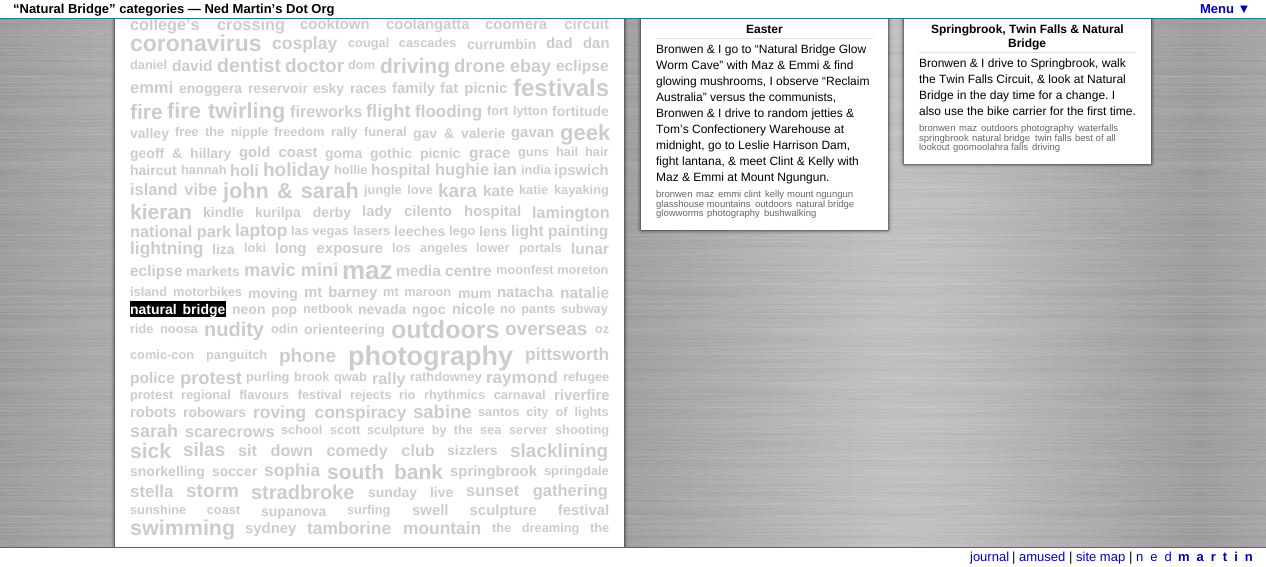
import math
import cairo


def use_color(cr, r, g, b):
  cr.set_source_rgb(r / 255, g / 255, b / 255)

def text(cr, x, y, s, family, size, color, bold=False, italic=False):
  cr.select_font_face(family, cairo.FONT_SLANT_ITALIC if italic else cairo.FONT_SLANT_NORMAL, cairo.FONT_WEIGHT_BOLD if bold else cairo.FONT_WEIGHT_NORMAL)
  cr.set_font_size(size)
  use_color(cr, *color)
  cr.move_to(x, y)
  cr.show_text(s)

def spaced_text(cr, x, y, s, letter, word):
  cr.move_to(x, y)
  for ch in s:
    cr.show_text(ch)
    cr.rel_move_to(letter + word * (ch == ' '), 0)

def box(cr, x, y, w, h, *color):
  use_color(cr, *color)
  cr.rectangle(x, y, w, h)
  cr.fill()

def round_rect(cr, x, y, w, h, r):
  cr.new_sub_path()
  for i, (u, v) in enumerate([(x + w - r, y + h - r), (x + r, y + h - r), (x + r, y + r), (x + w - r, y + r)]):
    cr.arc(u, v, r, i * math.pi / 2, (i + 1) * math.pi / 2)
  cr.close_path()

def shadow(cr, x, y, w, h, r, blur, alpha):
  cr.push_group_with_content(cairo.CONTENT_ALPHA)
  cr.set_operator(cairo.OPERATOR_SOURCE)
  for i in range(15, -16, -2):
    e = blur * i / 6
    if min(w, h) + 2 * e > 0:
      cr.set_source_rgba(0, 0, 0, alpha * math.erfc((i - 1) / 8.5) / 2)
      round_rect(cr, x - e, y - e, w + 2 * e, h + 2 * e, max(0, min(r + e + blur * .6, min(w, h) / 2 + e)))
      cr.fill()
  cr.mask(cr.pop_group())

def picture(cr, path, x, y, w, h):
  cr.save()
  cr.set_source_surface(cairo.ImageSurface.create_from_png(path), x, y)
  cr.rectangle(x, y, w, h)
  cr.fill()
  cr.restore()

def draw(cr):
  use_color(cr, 255, 255, 255)
  cr.paint()
  picture(cr, "img_01.png", 0, 19, 1266, 528)
  use_color(cr, 0, 0, 0)
  shadow(cr, 115, -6, 509, 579, 0, 2, 1)
  shadow(cr, 641, -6, 247, 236, 0, 2, 1)
  shadow(cr, 904, -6, 247, 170, 0, 2, 1)
  box(cr, 110, 0, 1046, 18, 255, 255, 255)
  box(cr, 115, 19, 509, 528, 255, 255, 255)
  box(cr, 130, 301, 96, 16, 0, 0, 0)
  box(cr, 641, 19, 247, 211, 255, 255, 255)
  box(cr, 656, 38, 217, 1, 225, 223, 223)
  box(cr, 904, 19, 247, 145, 255, 255, 255)
  box(cr, 919, 52, 217, 1, 225, 223, 223)
  box(cr, 110, 548, 519, 19, 255, 255, 255)
  box(cr, 0, 547, 1266, 1, 30, 120, 160)
  text(cr, 13, 13, "“Natural Bridge” categories — Ned Martin’s Dot Org", "Liberation Sans", 13, (0, 0, 0), bold=True)
  text(cr, 1200, 13, "Menu ▼", "Liberation Sans", 13, (0, 0, 192), bold=True)
  cr.set_font_size(16.25)
  use_color(cr, 204, 204, 204)
  spaced_text(cr, 130, 30, "college’s crossing", 0, 13)
  text(cr, 300, 29, "cooktown", "Liberation Sans", 14.9, (204, 204, 204), bold=True)
  text(cr, 386, 29, "coolangatta", "Liberation Sans", 14.9, (204, 204, 204), bold=True)
  spaced_text(cr, 485, 29, "coomera circuit", 0, 13)
  box(cr, 0, 18, 1266, 1, 30, 120, 160)
  text(cr, 130, 51, "coronavirus", "Liberation Sans", 23, (204, 204, 204), bold=True)
  text(cr, 272, 49, "cosplay", "Liberation Sans", 17.5, (204, 204, 204), bold=True)
  cr.set_font_size(12.8)
  spaced_text(cr, 348, 47, "cougal cascades", 0, 6)
  text(cr, 467, 49, "currumbin", "Liberation Sans", 14, (204, 204, 204), bold=True)
  text(cr, 546, 48, "dad", "Liberation Sans", 14.9, (204, 204, 204), bold=True)
  text(cr, 583, 48, "dan", "Liberation Sans", 14.9, (204, 204, 204), bold=True)
  text(cr, 130, 69, "daniel", "Liberation Sans", 12.8, (204, 204, 204), bold=True)
  text(cr, 172, 71, "david", "Liberation Sans", 15.5, (204, 204, 204), bold=True)
  text(cr, 217, 72, "dentist", "Liberation Sans", 19.5, (204, 204, 204), bold=True)
  text(cr, 285, 72, "doctor", "Liberation Sans", 19, (204, 204, 204), bold=True)
  text(cr, 348, 69, "dom", "Liberation Sans", 12.8, (204, 204, 204), bold=True)
  text(cr, 380, 73, "driving", "Liberation Sans", 21, (204, 204, 204), bold=True)
  text(cr, 454, 72, "drone", "Liberation Sans", 18.5, (204, 204, 204), bold=True)
  text(cr, 510, 72, "ebay", "Liberation Sans", 18, (204, 204, 204), bold=True)
  text(cr, 556, 71, "eclipse", "Liberation Sans", 15.5, (204, 204, 204), bold=True)
  text(cr, 130, 93, "emmi", "Liberation Sans", 16.5, (204, 204, 204), bold=True)
  cr.set_font_size(14)
  spaced_text(cr, 179, 93, "enoggera reservoir", 0, 2)
  spaced_text(cr, 313, 93, "esky races", 0, 2)
  text(cr, 392, 93, "family", "Liberation Sans", 14.9, (204, 204, 204), bold=True)
  spaced_text(cr, 440, 93, "fat picnic", 0, 2)
  text(cr, 513, 96, "festivals", "Liberation Sans", 24, (204, 204, 204), bold=True)
  text(cr, 130, 119, "fire", "Liberation Sans", 21, (204, 204, 204), bold=True)
  cr.set_font_size(21.75)
  spaced_text(cr, 167, 118, "fire twirling", 0, 1)
  text(cr, 290, 117, "fireworks", "Liberation Sans", 16.25, (204, 204, 204), bold=True)
  text(cr, 366, 117, "flight", "Liberation Sans", 18.25, (204, 204, 204), bold=True)
  text(cr, 415, 117, "flooding", "Liberation Sans", 17, (204, 204, 204), bold=True)
  cr.set_font_size(12.8)
  spaced_text(cr, 487, 115, "fort lytton", 0, 1)
  text(cr, 552, 116, "fortitude", "Liberation Sans", 14, (204, 204, 204), bold=True)
  text(cr, 130, 138, "valley", "Liberation Sans", 14, (204, 204, 204), bold=True)
  cr.set_font_size(12.8)
  spaced_text(cr, 175, 136, "free the nipple", 0, 3)
  spaced_text(cr, 274, 136, "freedom rally", 0, 3)
  text(cr, 364, 136, "funeral", "Liberation Sans", 12.8, (204, 204, 204), bold=True)
  cr.set_font_size(14)
  spaced_text(cr, 413, 138, "gav & valerie", 0, 3)
  text(cr, 511, 137, "gavan", "Liberation Sans", 14.9, (204, 204, 204), bold=True)
  text(cr, 560, 140, "geek", "Liberation Sans", 22, (204, 204, 204), bold=True)
  cr.set_font_size(14)
  spaced_text(cr, 130, 158, "geoff & hillary", 0, 4)
  cr.set_font_size(14.9)
  spaced_text(cr, 239, 157, "gold coast", 0, 4)
  text(cr, 325, 158, "goma", "Liberation Sans", 14, (204, 204, 204), bold=True)
  spaced_text(cr, 370, 158, "gothic picnic", 0, 4)
  text(cr, 469, 158, "grace", "Liberation Sans", 15.5, (204, 204, 204), bold=True)
  text(cr, 518, 156, "guns", "Liberation Sans", 12.8, (204, 204, 204), bold=True)
  text(cr, 556, 156, "hail", "Liberation Sans", 12.8, (204, 204, 204), bold=True)
  text(cr, 585, 156, "hair", "Liberation Sans", 12.8, (204, 204, 204), bold=True)
  text(cr, 130, 175, "haircut", "Liberation Sans", 14, (204, 204, 204), bold=True)
  text(cr, 181, 174, "hannah", "Liberation Sans", 12.8, (204, 204, 204), bold=True)
  text(cr, 230, 176, "holi", "Liberation Sans", 16.25, (204, 204, 204), bold=True)
  text(cr, 263, 176, "holiday", "Liberation Sans", 19, (204, 204, 204), bold=True)
  text(cr, 334, 174, "hollie", "Liberation Sans", 12.8, (204, 204, 204), bold=True)
  text(cr, 371, 175, "hospital", "Liberation Sans", 15.5, (204, 204, 204), bold=True)
  text(cr, 435, 175, "hughie", "Liberation Sans", 16.5, (204, 204, 204), bold=True)
  text(cr, 493, 175, "ian", "Liberation Sans", 16.5, (204, 204, 204), bold=True)
  text(cr, 521, 174, "india", "Liberation Sans", 12.8, (204, 204, 204), bold=True)
  text(cr, 554, 175, "ipswich", "Liberation Sans", 14.9, (204, 204, 204), bold=True)
  cr.set_font_size(16.5)
  spaced_text(cr, 130, 195, "island vibe", 0, 2)
  cr.set_font_size(21.75)
  spaced_text(cr, 223, 198, "john & sarah", 0, 2)
  cr.set_font_size(12.8)
  spaced_text(cr, 364, 194, "jungle love", 0, 2)
  text(cr, 438, 197, "kara", "Liberation Sans", 19, (204, 204, 204), bold=True)
  text(cr, 483, 196, "kate", "Liberation Sans", 15.5, (204, 204, 204), bold=True)
  text(cr, 519, 194, "katie", "Liberation Sans", 12.8, (204, 204, 204), bold=True)
  text(cr, 554, 194, "kayaking", "Liberation Sans", 12.8, (204, 204, 204), bold=True)
  text(cr, 130, 219, "kieran", "Liberation Sans", 21, (204, 204, 204), bold=True)
  text(cr, 203, 217, "kindle", "Liberation Sans", 14, (204, 204, 204), bold=True)
  spaced_text(cr, 255, 217, "kurilpa derby", 0, 8)
  cr.set_font_size(14.9)
  spaced_text(cr, 362, 216, "lady cilento hospital", 0, 8)
  text(cr, 532, 218, "lamington", "Liberation Sans", 16.25, (204, 204, 204), bold=True)
  text(cr, 130, 237, "national park", "Liberation Sans", 16.25, (204, 204, 204), bold=True)
  text(cr, 235, 236, "laptop", "Liberation Sans", 17.5, (204, 204, 204), bold=True)
  text(cr, 291, 235, "las vegas", "Liberation Sans", 12.8, (204, 204, 204), bold=True)
  text(cr, 353, 235, "lasers", "Liberation Sans", 12.8, (204, 204, 204), bold=True)
  text(cr, 394, 236, "leeches", "Liberation Sans", 14, (204, 204, 204), bold=True)
  text(cr, 449, 235, "lego", "Liberation Sans", 12.8, (204, 204, 204), bold=True)
  text(cr, 479, 236, "lens", "Liberation Sans", 14, (204, 204, 204), bold=True)
  text(cr, 511, 236, "light painting", "Liberation Sans", 15.5, (204, 204, 204), bold=True)
  text(cr, 130, 254, "lightning", "Liberation Sans", 17.4, (204, 204, 204), bold=True)
  text(cr, 212, 254, "liza", "Liberation Sans", 14, (204, 204, 204), bold=True)
  text(cr, 244, 252, "loki", "Liberation Sans", 12.8, (204, 204, 204), bold=True)
  cr.set_font_size(14.9)
  spaced_text(cr, 275, 253, "long exposure", 0, 6)
  cr.set_font_size(12.8)
  spaced_text(cr, 392, 252, "los angeles", 0, 6)
  spaced_text(cr, 476, 252, "lower portals", 0, 6)
  text(cr, 571, 254, "lunar", "Liberation Sans", 15.5, (204, 204, 204), bold=True)
  text(cr, 130, 276, "eclipse", "Liberation Sans", 15.5, (204, 204, 204), bold=True)
  text(cr, 186, 276, "markets", "Liberation Sans", 14, (204, 204, 204), bold=True)
  text(cr, 244, 276, "mavic mini", "Liberation Sans", 18.25, (204, 204, 204), bold=True)
  text(cr, 342, 279, "maz", "Liberation Sans", 26, (204, 204, 204), bold=True)
  text(cr, 396, 276, "media centre", "Liberation Sans", 15.5, (204, 204, 204), bold=True)
  text(cr, 496, 274, "moonfest moreton", "Liberation Sans", 12.8, (204, 204, 204), bold=True)
  text(cr, 130, 296, "island", "Liberation Sans", 12.8, (204, 204, 204), bold=True)
  text(cr, 173, 296, "motorbikes", "Liberation Sans", 12.8, (204, 204, 204), bold=True)
  text(cr, 248, 298, "moving", "Liberation Sans", 14, (204, 204, 204), bold=True)
  cr.set_font_size(14.9)
  spaced_text(cr, 304, 297, "mt barney", 0, 2)
  cr.set_font_size(12.8)
  spaced_text(cr, 383, 296, "mt maroon", 0, 2)
  text(cr, 458, 298, "mum", "Liberation Sans", 14, (204, 204, 204), bold=True)
  text(cr, 497, 297, "natacha", "Liberation Sans", 14.9, (204, 204, 204), bold=True)
  text(cr, 560, 298, "natalie", "Liberation Sans", 15.5, (204, 204, 204), bold=True)
  cr.set_font_size(14)
  use_color(cr, 255, 255, 255)
  spaced_text(cr, 130, 314, "natural bridge", 0, 2)
  use_color(cr, 204, 204, 204)
  spaced_text(cr, 232, 314, "neon pop", 0, 2)
  text(cr, 303, 313, "netbook", "Liberation Sans", 12.8, (204, 204, 204), bold=True)
  text(cr, 358, 314, "nevada", "Liberation Sans", 14, (204, 204, 204), bold=True)
  text(cr, 412, 314, "ngoc", "Liberation Sans", 14, (204, 204, 204), bold=True)
  text(cr, 452, 314, "nicole", "Liberation Sans", 14.9, (204, 204, 204), bold=True)
  cr.set_font_size(12.8)
  spaced_text(cr, 500, 313, "no pants subway", 0, 2)
  text(cr, 130, 333, "ride", "Liberation Sans", 12.8, (204, 204, 204), bold=True)
  text(cr, 160, 333, "noosa", "Liberation Sans", 12.8, (204, 204, 204), bold=True)
  text(cr, 204, 336, "nudity", "Liberation Sans", 20, (204, 204, 204), bold=True)
  text(cr, 271, 333, "odin", "Liberation Sans", 12.8, (204, 204, 204), bold=True)
  text(cr, 304, 334, "orienteering", "Liberation Sans", 14, (204, 204, 204), bold=True)
  text(cr, 391, 338, "outdoors", "Liberation Sans", 25, (204, 204, 204), bold=True)
  text(cr, 505, 335, "overseas", "Liberation Sans", 19, (204, 204, 204), bold=True)
  text(cr, 595, 333, "oz", "Liberation Sans", 12.8, (204, 204, 204), bold=True)
  text(cr, 130, 359, "comic-con", "Liberation Sans", 12.8, (204, 204, 204), bold=True)
  text(cr, 206, 359, "panguitch", "Liberation Sans", 12.8, (204, 204, 204), bold=True)
  text(cr, 279, 362, "phone", "Liberation Sans", 19, (204, 204, 204), bold=True)
  text(cr, 348, 365, "photography", "Liberation Sans", 27, (204, 204, 204), bold=True)
  text(cr, 525, 360, "pittsworth", "Liberation Sans", 17.4, (204, 204, 204), bold=True)
  text(cr, 130, 383, "police", "Liberation Sans", 15.5, (204, 204, 204), bold=True)
  text(cr, 180, 384, "protest", "Liberation Sans", 18.25, (204, 204, 204), bold=True)
  cr.set_font_size(12.8)
  spaced_text(cr, 246, 381, "purling brook", 0, 1)
  text(cr, 334, 381, "qwab", "Liberation Sans", 12.8, (204, 204, 204), bold=True)
  text(cr, 372, 384, "rally", "Liberation Sans", 16.25, (204, 204, 204), bold=True)
  text(cr, 410, 381, "rathdowney", "Liberation Sans", 12.8, (204, 204, 204), bold=True)
  text(cr, 486, 383, "raymond", "Liberation Sans", 17, (204, 204, 204), bold=True)
  text(cr, 563, 381, "refugee", "Liberation Sans", 12.8, (204, 204, 204), bold=True)
  text(cr, 130, 399, "protest", "Liberation Sans", 12.8, (204, 204, 204), bold=True)
  spaced_text(cr, 181, 399, "regional flavours festival", 0, 5)
  text(cr, 350, 399, "rejects", "Liberation Sans", 12.8, (204, 204, 204), bold=True)
  spaced_text(cr, 399, 399, "rio rhythmics carnaval", 0, 5)
  text(cr, 554, 400, "riverfire", "Liberation Sans", 14.9, (204, 204, 204), bold=True)
  text(cr, 130, 417, "robots", "Liberation Sans", 14.9, (204, 204, 204), bold=True)
  text(cr, 183, 417, "robowars", "Liberation Sans", 14, (204, 204, 204), bold=True)
  cr.set_font_size(17.4)
  spaced_text(cr, 253, 418, "roving conspiracy", 0, 3.5)
  text(cr, 413, 418, "sabine", "Liberation Sans", 18.5, (204, 204, 204), bold=True)
  cr.set_font_size(12.8)
  spaced_text(cr, 478, 416, "santos city of lights", 0, 3.5)
  text(cr, 130, 437, "sarah", "Liberation Sans", 18, (204, 204, 204), bold=True)
  text(cr, 185, 437, "scarecrows", "Liberation Sans", 16.25, (204, 204, 204), bold=True)
  text(cr, 281, 434, "school", "Liberation Sans", 12.8, (204, 204, 204), bold=True)
  text(cr, 330, 434, "scott", "Liberation Sans", 12.8, (204, 204, 204), bold=True)
  spaced_text(cr, 367, 434, "sculpture by the sea", 0, 3.5)
  text(cr, 509, 434, "server", "Liberation Sans", 12.8, (204, 204, 204), bold=True)
  text(cr, 555, 434, "shooting", "Liberation Sans", 12.8, (204, 204, 204), bold=True)
  text(cr, 130, 458, "sick", "Liberation Sans", 21, (204, 204, 204), bold=True)
  text(cr, 183, 456, "silas", "Liberation Sans", 19, (204, 204, 204), bold=True)
  cr.set_font_size(16.25)
  spaced_text(cr, 238, 456, "sit down comedy club", 0, 9)
  text(cr, 447, 455, "sizzlers", "Liberation Sans", 14, (204, 204, 204), bold=True)
  text(cr, 510, 457, "slacklining", "Liberation Sans", 19, (204, 204, 204), bold=True)
  text(cr, 130, 476, "snorkelling", "Liberation Sans", 14, (204, 204, 204), bold=True)
  text(cr, 212, 476, "soccer", "Liberation Sans", 14, (204, 204, 204), bold=True)
  text(cr, 264, 476, "sophia", "Liberation Sans", 17.4, (204, 204, 204), bold=True)
  cr.set_font_size(21)
  spaced_text(cr, 327, 479, "south bank", 0, 4)
  text(cr, 450, 476, "springbrook", "Liberation Sans", 14.9, (204, 204, 204), bold=True)
  text(cr, 544, 475, "springdale", "Liberation Sans", 12.8, (204, 204, 204), bold=True)
  text(cr, 130, 497, "stella", "Liberation Sans", 17, (204, 204, 204), bold=True)
  text(cr, 186, 497, "storm", "Liberation Sans", 19, (204, 204, 204), bold=True)
  text(cr, 251, 499, "stradbroke", "Liberation Sans", 20, (204, 204, 204), bold=True)
  cr.set_font_size(14)
  spaced_text(cr, 368, 497, "sunday live", 0, 9)
  cr.set_font_size(16.5)
  spaced_text(cr, 466, 496, "sunset gathering", 0, 9)
  cr.set_font_size(12.8)
  spaced_text(cr, 130, 514, "sunshine coast", 0, 17)
  text(cr, 261, 516, "supanova", "Liberation Sans", 14, (204, 204, 204), bold=True)
  text(cr, 347, 514, "surfing", "Liberation Sans", 12.8, (204, 204, 204), bold=True)
  cr.set_font_size(14.9)
  spaced_text(cr, 412, 515, "swell sculpture festival", 0, 17)
  text(cr, 130, 535, "swimming", "Liberation Sans", 21.5, (204, 204, 204), bold=True)
  text(cr, 245, 533, "sydney", "Liberation Sans", 14.9, (204, 204, 204), bold=True)
  cr.set_font_size(17.4)
  spaced_text(cr, 307, 534, "tamborine mountain", 0, 7)
  cr.set_font_size(12.8)
  spaced_text(cr, 492, 532, "the dreaming", 0, 7)
  text(cr, 590, 532, "the", "Liberation Sans", 12.8, (204, 204, 204), bold=True)
  text(cr, 746, 33, "Easter", "Liberation Sans", 12, (0, 0, 0), bold=True)
  text(cr, 656, 53, "Bronwen & I go to “Natural Bridge Glow", "Liberation Sans", 12, (0, 0, 0))
  text(cr, 656, 69, "Worm Cave” with Maz & Emmi & find", "Liberation Sans", 12, (0, 0, 0))
  text(cr, 656, 85, "glowing mushrooms, I observe “Reclaim", "Liberation Sans", 12, (0, 0, 0))
  text(cr, 656, 101, "Australia” versus the communists,", "Liberation Sans", 12, (0, 0, 0))
  text(cr, 656, 117, "Bronwen & I drive to random jetties &", "Liberation Sans", 12, (0, 0, 0))
  text(cr, 656, 133, "Tom’s Confectionery Warehouse at", "Liberation Sans", 12, (0, 0, 0))
  text(cr, 656, 149, "midnight, go to Leslie Harrison Dam,", "Liberation Sans", 12, (0, 0, 0))
  text(cr, 656, 165, "fight lantana, & meet Clint & Kelly with", "Liberation Sans", 12, (0, 0, 0))
  text(cr, 656, 181, "Maz & Emmi at Mount Ngungun.", "Liberation Sans", 12, (0, 0, 0))
  text(cr, 656, 197, "bronwen", "Liberation Sans", 9.5, (102, 102, 102))
  text(cr, 696, 197, "maz", "Liberation Sans", 9.5, (102, 102, 102))
  text(cr, 718, 197, "emmi", "Liberation Sans", 9.5, (102, 102, 102))
  text(cr, 744, 197, "clint", "Liberation Sans", 9.5, (102, 102, 102))
  text(cr, 765, 197, "kelly", "Liberation Sans", 9.5, (102, 102, 102))
  text(cr, 787, 197, "mount ngungun", "Liberation Sans", 9.5, (102, 102, 102))
  text(cr, 656, 207, "glasshouse mountains", "Liberation Sans", 9.5, (102, 102, 102))
  text(cr, 755, 207, "outdoors", "Liberation Sans", 9.5, (102, 102, 102))
  text(cr, 796, 207, "natural bridge", "Liberation Sans", 9.5, (102, 102, 102))
  text(cr, 656, 216, "glowworms", "Liberation Sans", 9.5, (102, 102, 102))
  text(cr, 707, 216, "photography", "Liberation Sans", 9.5, (102, 102, 102))
  text(cr, 764, 216, "bushwalking", "Liberation Sans", 9.5, (102, 102, 102))
  text(cr, 931, 33, "Springbrook, Twin Falls & Natural", "Liberation Sans", 12, (0, 0, 0), bold=True)
  text(cr, 1008, 47, "Bridge", "Liberation Sans", 12, (0, 0, 0), bold=True)
  text(cr, 919, 67, "Bronwen & I drive to Springbrook, walk", "Liberation Sans", 12, (0, 0, 0))
  text(cr, 919, 83, "the Twin Falls Circuit, & look at Natural", "Liberation Sans", 12, (0, 0, 0))
  text(cr, 919, 99, "Bridge in the day time for a change. I", "Liberation Sans", 12, (0, 0, 0))
  text(cr, 919, 115, "also use the bike carrier for the first time.", "Liberation Sans", 12, (0, 0, 0))
  text(cr, 919, 131, "bronwen", "Liberation Sans", 9.5, (102, 102, 102))
  text(cr, 959, 131, "maz", "Liberation Sans", 9.5, (102, 102, 102))
  text(cr, 981, 131, "outdoors", "Liberation Sans", 9.5, (102, 102, 102))
  text(cr, 1021, 131, "photography", "Liberation Sans", 9.5, (102, 102, 102))
  text(cr, 1078, 131, "waterfalls", "Liberation Sans", 9.5, (102, 102, 102))
  text(cr, 919, 141, "springbrook", "Liberation Sans", 9.5, (102, 102, 102))
  text(cr, 972, 141, "natural bridge", "Liberation Sans", 9.5, (102, 102, 102))
  text(cr, 1035, 141, "twin falls", "Liberation Sans", 9.5, (102, 102, 102))
  text(cr, 1075, 141, "best of all", "Liberation Sans", 9.5, (102, 102, 102))
  text(cr, 919, 150, "lookout", "Liberation Sans", 9.5, (102, 102, 102))
  text(cr, 953, 150, "goomoolahra falls", "Liberation Sans", 9.5, (102, 102, 102))
  text(cr, 1032, 150, "driving", "Liberation Sans", 9.5, (102, 102, 102))
  text(cr, 970, 561, "journal", "Liberation Sans", 13, (0, 0, 192))
  text(cr, 1012, 561, "|", "Liberation Sans", 13, (0, 0, 0))
  text(cr, 1019, 561, "amused", "Liberation Sans", 13, (0, 0, 192))
  text(cr, 1069, 561, "|", "Liberation Sans", 13, (0, 0, 0))
  text(cr, 1076, 561, "site map", "Liberation Sans", 13, (0, 0, 192))
  text(cr, 1129, 561, "|", "Liberation Sans", 13, (0, 0, 0))
  use_color(cr, 0, 0, 192)
  spaced_text(cr, 1136, 561, "ned", 7, 0)
  cr.select_font_face("Liberation Sans", cairo.FONT_SLANT_NORMAL, cairo.FONT_WEIGHT_BOLD)
  spaced_text(cr, 1178, 561, "martin", 7, 0)


surface = cairo.ImageSurface(cairo.FORMAT_RGB24, 1266, 567)
cr = cairo.Context(surface)
options = cairo.FontOptions()
options.set_hint_metrics(cairo.HINT_METRICS_OFF)
options.set_hint_style(cairo.HINT_STYLE_NONE)
cr.set_font_options(options)
cr.set_miter_limit(4)
draw(cr)
surface.write_to_png("out.png")
